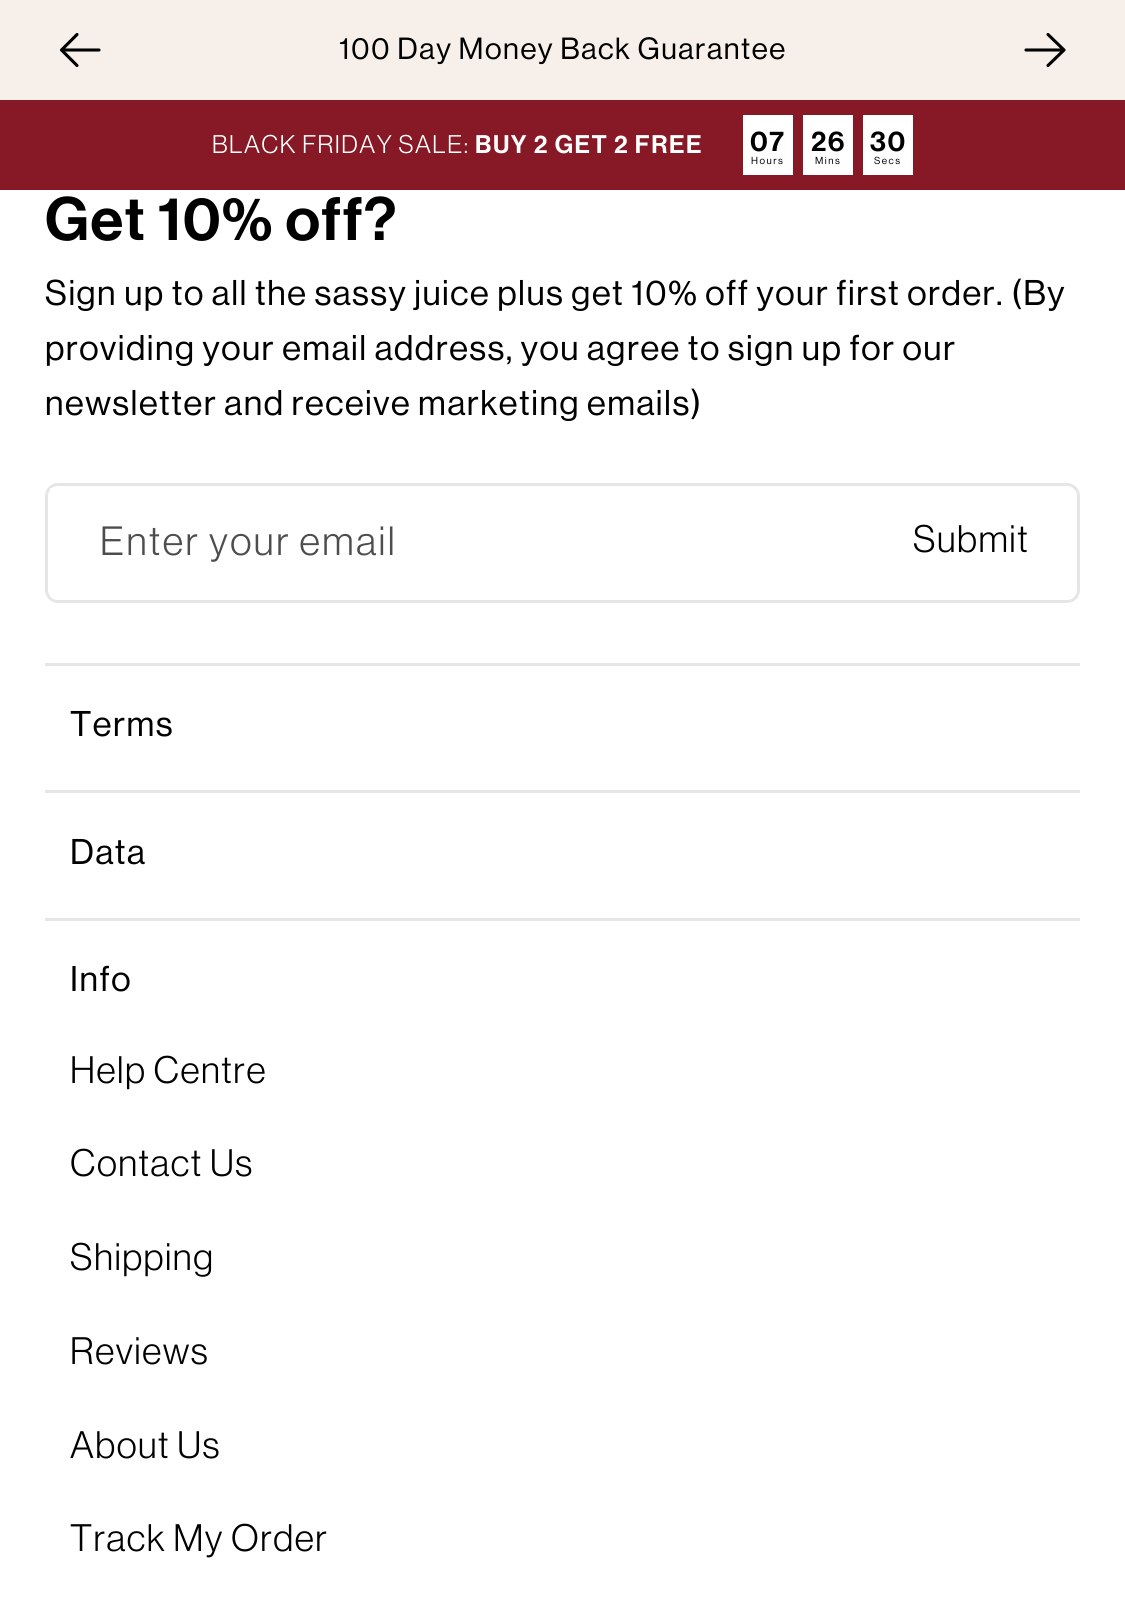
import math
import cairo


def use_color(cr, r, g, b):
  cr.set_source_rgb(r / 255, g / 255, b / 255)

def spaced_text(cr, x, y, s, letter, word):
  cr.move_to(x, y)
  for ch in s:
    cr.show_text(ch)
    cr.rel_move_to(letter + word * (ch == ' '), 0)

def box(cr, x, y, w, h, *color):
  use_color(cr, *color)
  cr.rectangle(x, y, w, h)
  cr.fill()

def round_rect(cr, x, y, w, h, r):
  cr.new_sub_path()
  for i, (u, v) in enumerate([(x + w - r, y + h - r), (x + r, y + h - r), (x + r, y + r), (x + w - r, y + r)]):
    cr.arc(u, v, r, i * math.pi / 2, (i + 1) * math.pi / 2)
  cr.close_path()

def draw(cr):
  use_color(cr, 255, 255, 255)
  cr.paint()
  box(cr, 0, 0, 1125, 100, 247, 240, 234)
  cr.new_path()
  cr.move_to(77, 34.5)
  cr.line_to(61.5, 50)
  cr.move_to(61.5, 50)
  cr.line_to(77, 65.5)
  cr.move_to(61.5, 50)
  cr.line_to(99, 50)
  use_color(cr, 0, 0, 0)
  cr.set_line_width(3.1)
  cr.set_line_cap(cairo.LINE_CAP_ROUND)
  cr.set_line_join(cairo.LINE_JOIN_ROUND)
  cr.stroke()
  cr.new_path()
  cr.move_to(1048, 65.5)
  cr.line_to(1064, 50)
  cr.move_to(1064, 50)
  cr.line_to(1048, 34.5)
  cr.move_to(1064, 50)
  cr.line_to(1026, 50)
  cr.stroke()
  box(cr, 0, 100, 1125, 90, 134, 25, 37)
  box(cr, 743, 115, 50, 60, 255, 255, 255)
  box(cr, 803, 115, 50, 60, 255, 255, 255)
  box(cr, 863, 115, 50, 60, 255, 255, 255)
  round_rect(cr, 46.5, 484.5, 1032, 117, 11.5)
  use_color(cr, 230, 230, 230)
  cr.set_line_width(3)
  cr.set_line_cap(cairo.LINE_CAP_BUTT)
  cr.set_line_join(cairo.LINE_JOIN_MITER)
  cr.stroke()
  cr.save()
  round_rect(cr, 48, 485, 1030, 115, 10)
  cr.clip()
  box(cr, 50, 488, 855, 112, 255, 255, 255)
  cr.restore()
  box(cr, 45, 663, 1035, 3, 230, 230, 230)
  box(cr, 45, 790, 1035, 3, 230, 230, 230)
  box(cr, 45, 918, 1035, 3, 230, 230, 230)
  cr.select_font_face("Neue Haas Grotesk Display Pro")
  cr.set_font_size(30)
  use_color(cr, 0, 0, 0)
  spaced_text(cr, 339, 59, "100 Day Money Back Guarantee", 1.5, 0)
  cr.select_font_face("Neue Haas Grotesk Display Pro Light")
  cr.set_font_size(25)
  use_color(cr, 255, 255, 255)
  spaced_text(cr, 212, 153, "BLACK FRIDAY SALE:", 1.5, 0)
  cr.select_font_face("Neue Haas Grotesk Display Pro SemiBold")
  spaced_text(cr, 475, 153, "BUY 2 GET 2 FREE", 1.5, 0)
  cr.set_font_size(28)
  use_color(cr, 0, 0, 0)
  spaced_text(cr, 750, 151, "07", 1.5, 0)
  cr.select_font_face("Neue Haas Grotesk Display Pro")
  cr.set_font_size(10)
  spaced_text(cr, 751, 164, "Hours", 1.5, 0)
  cr.select_font_face("Neue Haas Grotesk Display Pro SemiBold")
  cr.set_font_size(28)
  spaced_text(cr, 811, 151, "26", 1.5, 0)
  cr.select_font_face("Neue Haas Grotesk Display Pro")
  cr.set_font_size(10)
  spaced_text(cr, 815, 164, "Mins", 1.5, 0)
  cr.select_font_face("Neue Haas Grotesk Display Pro SemiBold")
  cr.set_font_size(28)
  spaced_text(cr, 870, 151, "30", 1.5, 0)
  cr.select_font_face("Neue Haas Grotesk Display Pro")
  cr.set_font_size(10)
  spaced_text(cr, 874, 164, "Secs", 1.5, 0)
  cr.select_font_face("Neue Haas Grotesk Display Pro SemiBold")
  cr.set_font_size(60)
  spaced_text(cr, 45, 240, "Get 10% off?", 1.5, 0)
  cr.select_font_face("Neue Haas Grotesk Display Pro")
  cr.set_font_size(35)
  spaced_text(cr, 45, 305, "Sign up to all the sassy juice plus get 10% off your first order. (By", 1.5, 0)
  spaced_text(cr, 45, 360, "providing your email address, you agree to sign up for our", 1.5, 0)
  spaced_text(cr, 45, 415, "newsletter and receive marketing emails)", 1.5, 0)
  cr.select_font_face("Neue Haas Grotesk Display Pro Light")
  cr.set_font_size(37.5)
  spaced_text(cr, 913, 552, "Submit", 1.5, 0)
  cr.set_font_size(40)
  use_color(cr, 77, 77, 77)
  spaced_text(cr, 100, 555, "Enter your email", 2.5, 0)
  cr.select_font_face("Neue Haas Grotesk Display Pro")
  cr.set_font_size(35)
  use_color(cr, 0, 0, 0)
  spaced_text(cr, 70, 736, "Terms", 1.5, 0)
  spaced_text(cr, 70, 864, "Data", 1.5, 0)
  spaced_text(cr, 70, 991, "Info", 1.5, 0)
  cr.select_font_face("Neue Haas Grotesk Display Pro Light")
  cr.set_font_size(37.5)
  spaced_text(cr, 70, 1083, "Help Centre", 1.5, 0)
  spaced_text(cr, 70, 1176, "Contact Us", 1.5, 0)
  spaced_text(cr, 70, 1270, "Shipping", 1.5, 0)
  spaced_text(cr, 70, 1364, "Reviews", 1.5, 0)
  spaced_text(cr, 70, 1458, "About Us", 1.5, 0)
  spaced_text(cr, 70, 1551, "Track My Order", 1.5, 0)


surface = cairo.ImageSurface(cairo.FORMAT_RGB24, 1125, 1603)
cr = cairo.Context(surface)
options = cairo.FontOptions()
options.set_hint_metrics(cairo.HINT_METRICS_OFF)
options.set_hint_style(cairo.HINT_STYLE_NONE)
cr.set_font_options(options)
cr.set_miter_limit(4)
draw(cr)
surface.write_to_png("out.png")
